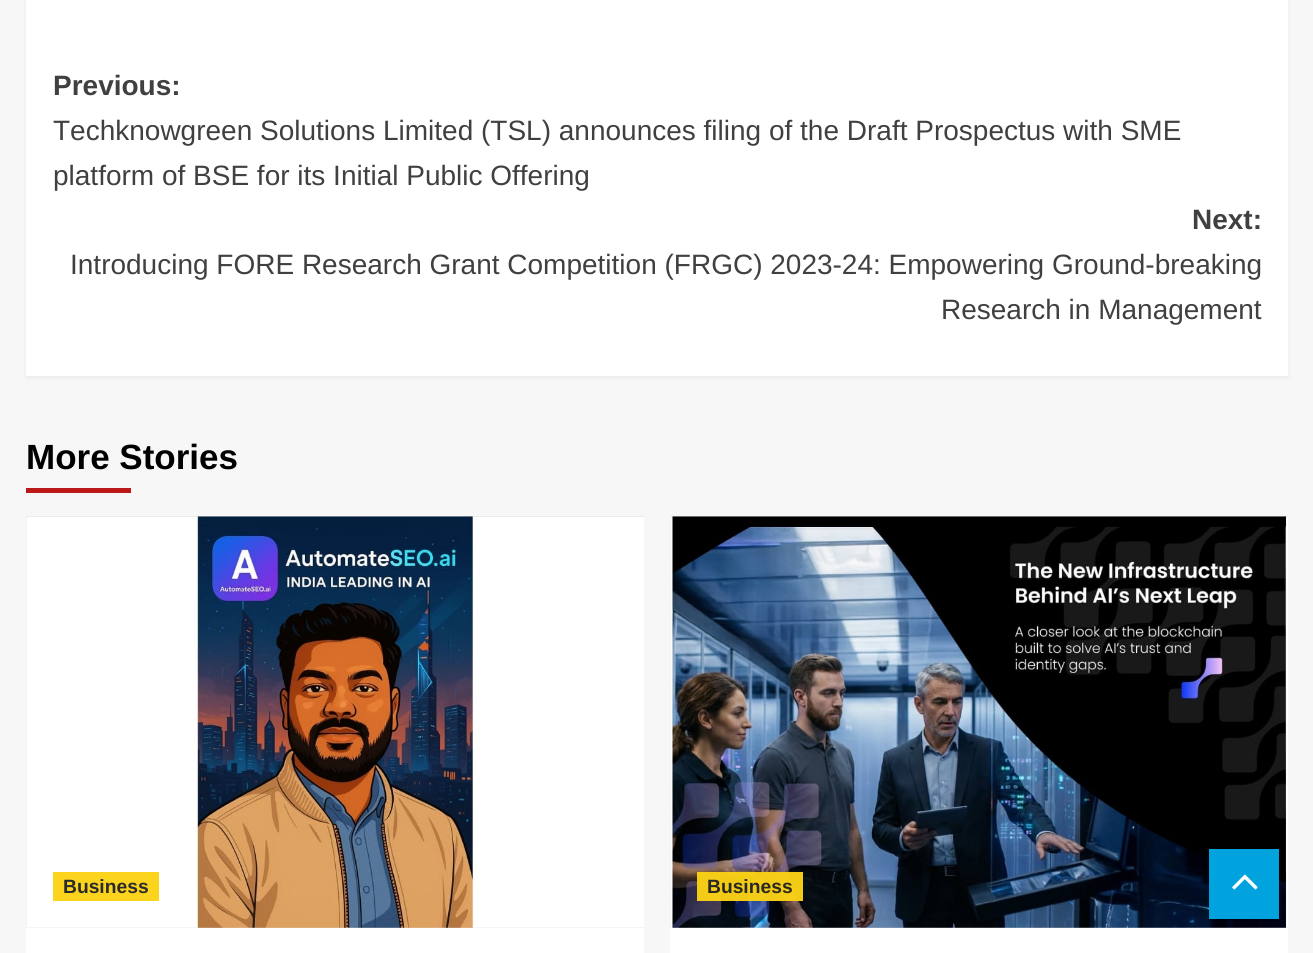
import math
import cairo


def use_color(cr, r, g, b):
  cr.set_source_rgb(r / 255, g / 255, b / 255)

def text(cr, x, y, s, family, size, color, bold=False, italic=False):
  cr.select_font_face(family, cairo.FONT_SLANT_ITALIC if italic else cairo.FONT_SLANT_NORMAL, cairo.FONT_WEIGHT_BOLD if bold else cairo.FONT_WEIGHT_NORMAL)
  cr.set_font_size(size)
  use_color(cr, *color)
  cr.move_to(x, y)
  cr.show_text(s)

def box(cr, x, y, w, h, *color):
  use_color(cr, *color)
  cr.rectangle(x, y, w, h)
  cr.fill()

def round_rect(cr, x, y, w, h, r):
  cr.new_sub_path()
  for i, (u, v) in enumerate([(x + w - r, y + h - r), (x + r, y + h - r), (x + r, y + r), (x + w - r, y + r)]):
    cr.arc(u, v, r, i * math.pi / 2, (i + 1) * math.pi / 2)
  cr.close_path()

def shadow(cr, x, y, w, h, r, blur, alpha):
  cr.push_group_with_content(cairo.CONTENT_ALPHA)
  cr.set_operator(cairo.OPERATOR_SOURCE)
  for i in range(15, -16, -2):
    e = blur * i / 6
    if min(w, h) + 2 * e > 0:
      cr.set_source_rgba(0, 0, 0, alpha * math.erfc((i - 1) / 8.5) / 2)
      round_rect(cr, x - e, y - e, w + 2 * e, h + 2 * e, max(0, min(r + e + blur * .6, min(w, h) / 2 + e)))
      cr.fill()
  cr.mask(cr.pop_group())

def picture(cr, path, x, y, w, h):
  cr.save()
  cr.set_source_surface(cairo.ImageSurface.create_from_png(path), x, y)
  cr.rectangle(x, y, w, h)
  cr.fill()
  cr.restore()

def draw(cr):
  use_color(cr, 247, 247, 247)
  cr.paint()
  use_color(cr, 0, 0, 0)
  shadow(cr, 26, -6, 1262, 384, 0, 2, 0.05)
  box(cr, 26, 0, 1262, 376, 255, 255, 255)
  box(cr, 26, 488, 105, 5, 187, 25, 25)
  box(cr, 26, 928, 618, 25, 255, 255, 255)
  box(cr, 26, 516, 618, 412, 216, 216, 216)
  picture(cr, "img_01.png", 26, 516, 618, 412)
  box(cr, 53, 872, 106, 29, 252, 212, 30)
  box(cr, 670, 928, 618, 25, 255, 255, 255)
  box(cr, 670, 516, 618, 412, 216, 216, 216)
  picture(cr, "img_02.png", 670, 516, 618, 412)
  cr.set_source_rgba(0.988, 0.824, 0.082, 0.96)
  cr.rectangle(697, 872, 106, 29)
  cr.fill()
  box(cr, 1209, 849, 70, 70, 0, 163, 221)
  picture(cr, "img_03.png", 1232, 874, 26, 16)
  text(cr, 53, 95, "Previous:", "Liberation Sans", 28, (64, 64, 64), bold=True)
  text(cr, 53, 140, "Techknowgreen Solutions Limited (TSL) announces filing of the Draft Prospectus with SME", "Liberation Sans", 28, (64, 64, 64))
  text(cr, 53, 185, "platform of BSE for its Initial Public Offering", "Liberation Sans", 28, (64, 64, 64))
  text(cr, 1192, 229, "Next:", "Liberation Sans", 28, (64, 64, 64), bold=True)
  text(cr, 70, 274, "Introducing FORE Research Grant Competition (FRGC) 2023-24: Empowering Ground-breaking", "Liberation Sans", 28, (64, 64, 64))
  text(cr, 941, 319, "Research in Management", "Liberation Sans", 28, (64, 64, 64))
  text(cr, 26, 469, "More Stories", "Liberation Sans", 35, (0, 0, 0), bold=True)
  text(cr, 63, 893, "Business", "Liberation Sans", 19.25, (42, 42, 42), bold=True)
  text(cr, 707, 893, "Business", "Liberation Sans", 19.25, (41, 40, 33), bold=True)


surface = cairo.ImageSurface(cairo.FORMAT_RGB24, 1313, 953)
cr = cairo.Context(surface)
options = cairo.FontOptions()
options.set_hint_metrics(cairo.HINT_METRICS_OFF)
options.set_hint_style(cairo.HINT_STYLE_NONE)
cr.set_font_options(options)
cr.set_miter_limit(4)
draw(cr)
surface.write_to_png("out.png")
